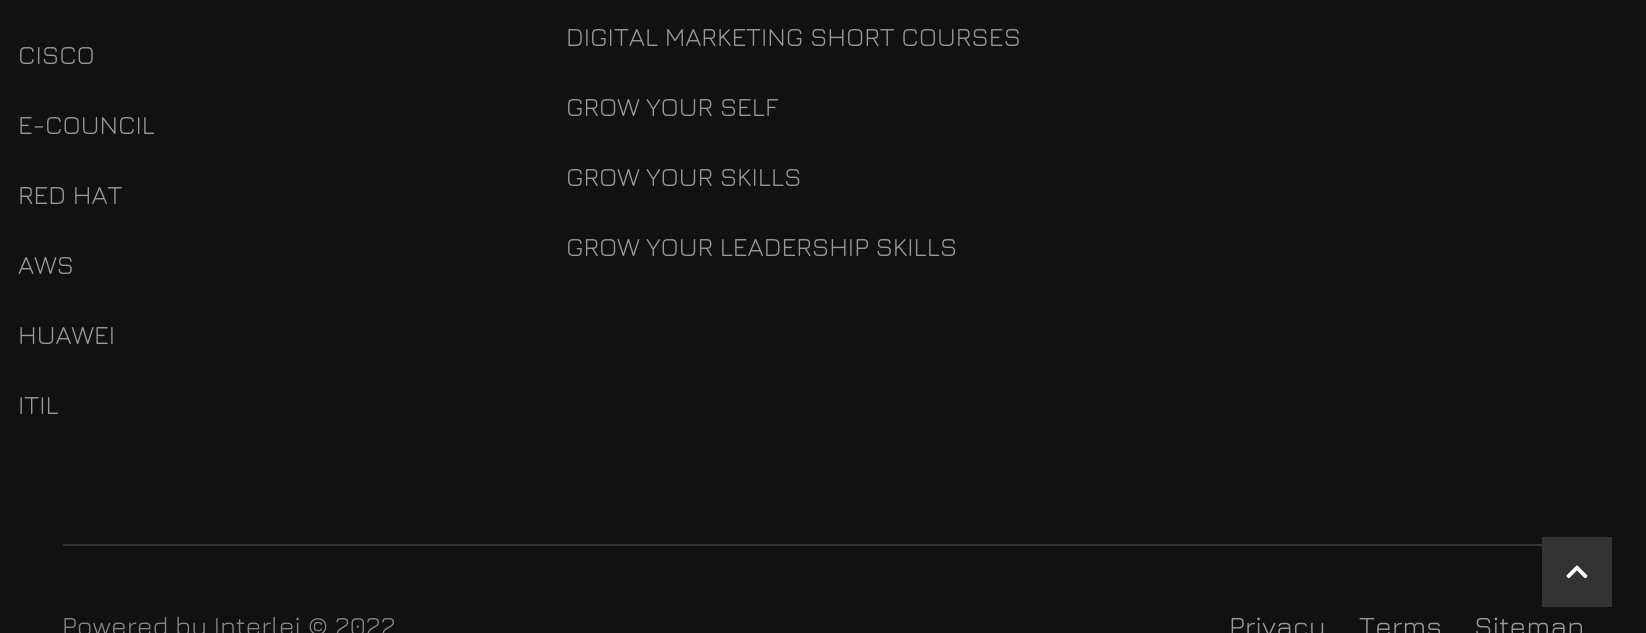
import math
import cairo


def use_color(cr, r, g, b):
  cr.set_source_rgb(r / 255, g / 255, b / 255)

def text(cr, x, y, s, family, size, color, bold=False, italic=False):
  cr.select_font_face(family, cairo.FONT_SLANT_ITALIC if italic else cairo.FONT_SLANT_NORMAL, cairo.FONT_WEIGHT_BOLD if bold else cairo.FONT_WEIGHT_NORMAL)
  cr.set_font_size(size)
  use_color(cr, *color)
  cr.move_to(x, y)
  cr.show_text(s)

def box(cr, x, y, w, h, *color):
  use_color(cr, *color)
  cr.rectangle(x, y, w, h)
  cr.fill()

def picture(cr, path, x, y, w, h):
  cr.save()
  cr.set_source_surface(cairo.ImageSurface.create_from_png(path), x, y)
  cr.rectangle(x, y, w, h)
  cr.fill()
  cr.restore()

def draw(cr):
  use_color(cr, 17, 17, 17)
  cr.paint()
  box(cr, 63, 544, 1479, 2, 50, 50, 50)
  box(cr, 1542, 537, 70, 70, 51, 51, 51)
  picture(cr, "img_01.png", 1566, 565, 22, 14)
  text(cr, 18, 64, "CISCO", "Jura", 26.25, (153, 153, 153))
  text(cr, 18, 134, "E-COUNCIL", "Jura", 26.25, (153, 153, 153))
  text(cr, 18, 204, "RED HAT", "Jura", 26.25, (153, 153, 153))
  text(cr, 18, 274, "AWS", "Jura", 26.25, (153, 153, 153))
  text(cr, 18, 344, "HUAWEI", "Jura", 26.25, (153, 153, 153))
  text(cr, 18, 414, "ITIL", "Jura", 26.25, (153, 153, 153))
  text(cr, 566, 46, "DIGITAL MARKETING SHORT COURSES", "Jura", 26.25, (153, 153, 153))
  text(cr, 566, 116, "GROW YOUR SELF", "Jura", 26.25, (153, 153, 153))
  text(cr, 566, 186, "GROW YOUR SKILLS", "Jura", 26.25, (153, 153, 153))
  text(cr, 566, 256, "GROW YOUR LEADERSHIP SKILLS", "Jura", 26.25, (153, 153, 153))
  text(cr, 62, 635, "Powered by Interlei © 2022", "Jura", 26.25, (135, 135, 135))
  text(cr, 1229, 636, "Privacy", "Jura", 28, (153, 153, 153))
  text(cr, 1359, 636, "Terms", "Jura", 28, (153, 153, 153))
  text(cr, 1474, 636, "Sitemap", "Jura", 28, (153, 153, 153))


surface = cairo.ImageSurface(cairo.FORMAT_RGB24, 1646, 633)
cr = cairo.Context(surface)
options = cairo.FontOptions()
options.set_hint_metrics(cairo.HINT_METRICS_OFF)
options.set_hint_style(cairo.HINT_STYLE_NONE)
cr.set_font_options(options)
cr.set_miter_limit(4)
draw(cr)
surface.write_to_png("out.png")
